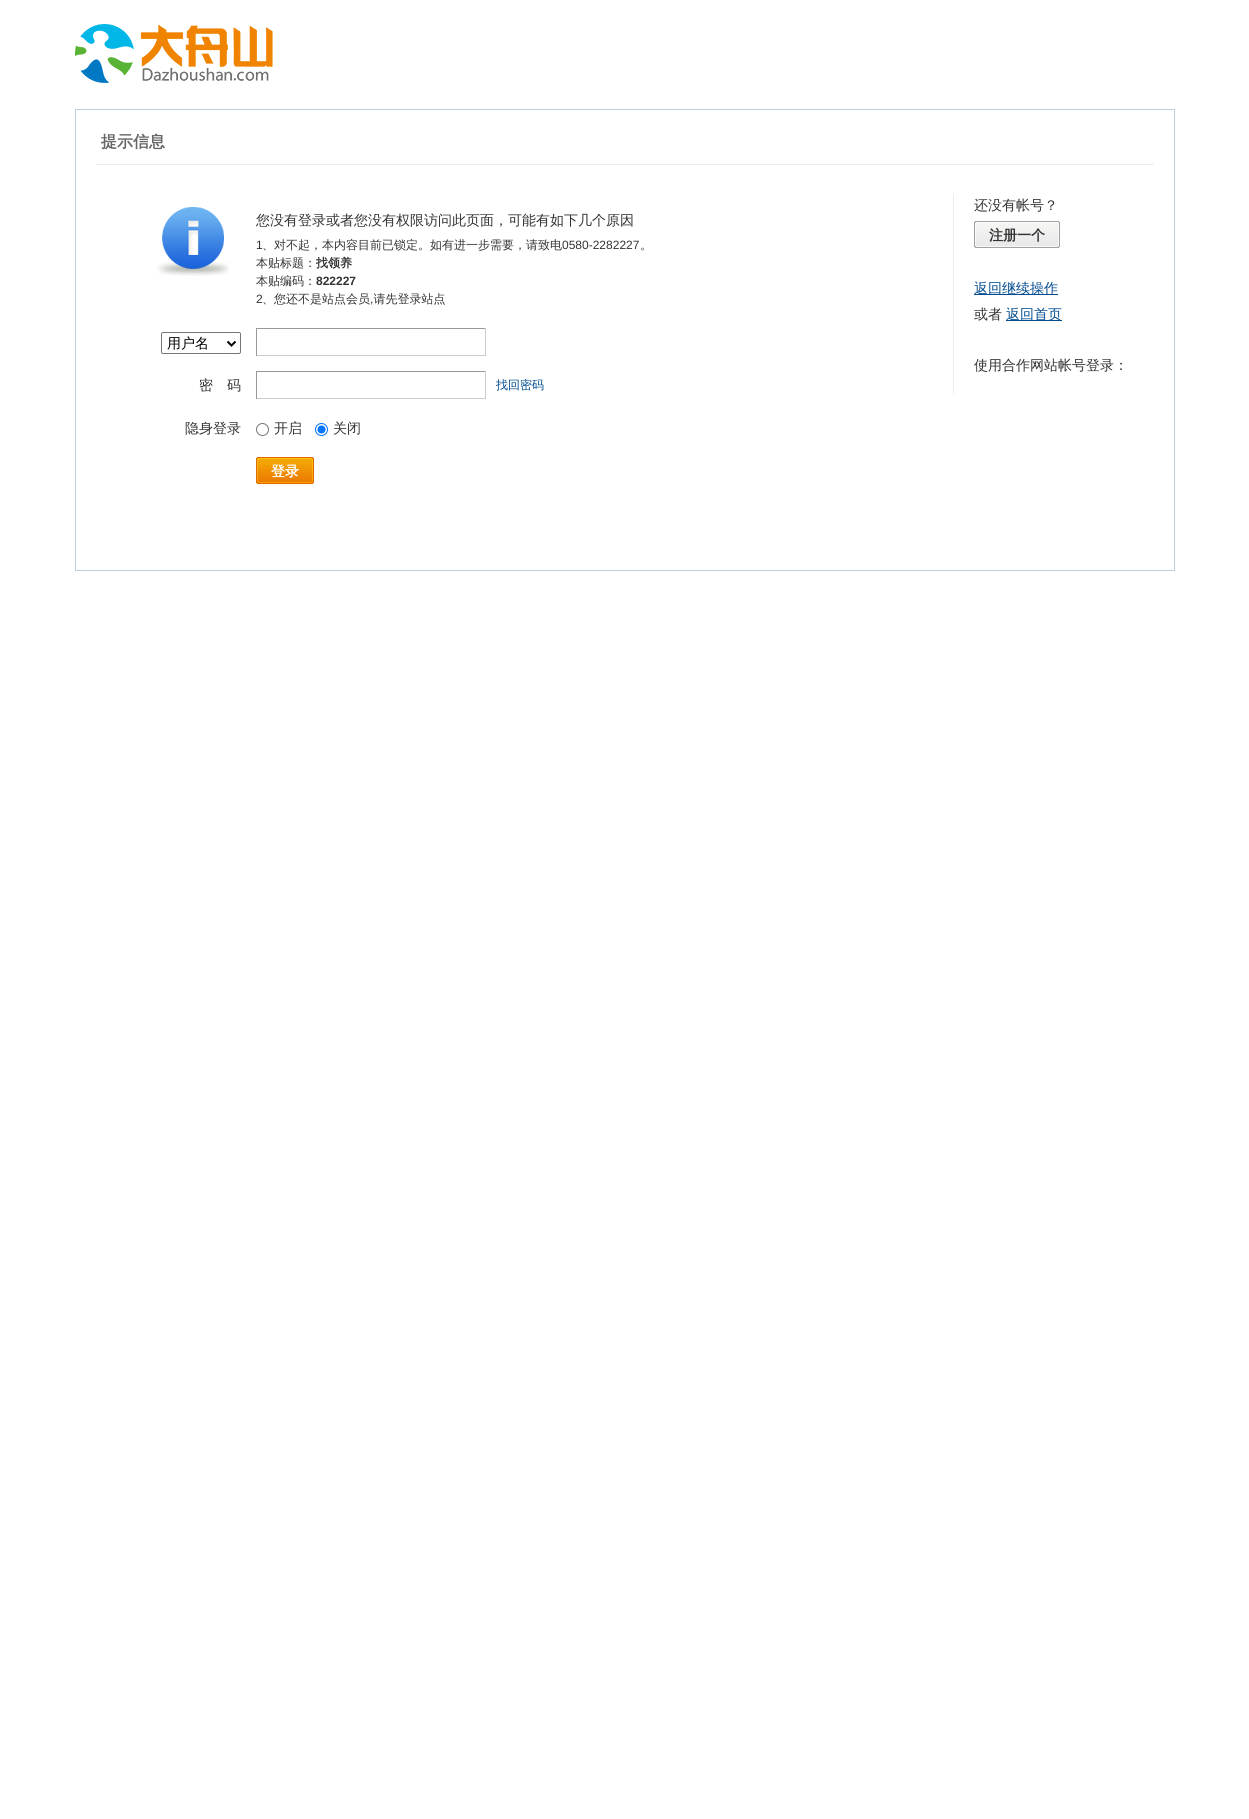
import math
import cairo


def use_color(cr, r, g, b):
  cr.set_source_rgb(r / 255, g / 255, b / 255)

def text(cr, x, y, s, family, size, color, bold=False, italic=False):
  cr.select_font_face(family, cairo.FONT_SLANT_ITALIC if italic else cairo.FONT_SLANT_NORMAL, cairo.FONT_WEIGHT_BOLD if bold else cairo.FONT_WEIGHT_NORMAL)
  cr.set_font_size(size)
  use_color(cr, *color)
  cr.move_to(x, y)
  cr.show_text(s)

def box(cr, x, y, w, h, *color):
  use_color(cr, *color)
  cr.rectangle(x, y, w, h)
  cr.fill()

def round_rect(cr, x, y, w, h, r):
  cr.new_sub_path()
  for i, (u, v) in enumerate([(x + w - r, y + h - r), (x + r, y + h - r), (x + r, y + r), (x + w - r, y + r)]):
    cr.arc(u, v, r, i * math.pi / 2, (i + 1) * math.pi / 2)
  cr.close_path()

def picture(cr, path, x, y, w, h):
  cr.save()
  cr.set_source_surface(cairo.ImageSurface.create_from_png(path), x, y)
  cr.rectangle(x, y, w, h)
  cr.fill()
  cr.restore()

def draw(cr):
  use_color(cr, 255, 255, 255)
  cr.paint()
  picture(cr, "img_01.png", 75, 24, 198, 59)
  cr.rectangle(75.5, 109.5, 1099, 461)
  use_color(cr, 189, 207, 221)
  cr.set_line_width(1)
  cr.stroke()
  box(cr, 96, 164, 1058, 1, 237, 237, 237)
  picture(cr, "img_02.png", 157, 207, 72, 69)
  round_rect(cr, 161.5, 332.5, 79, 21, 1.5)
  use_color(cr, 118, 118, 118)
  cr.stroke()
  cr.new_path()
  cr.move_to(227.5, 341.5)
  cr.line_to(231.5, 345.5)
  cr.line_to(235.5, 341.5)
  use_color(cr, 0, 0, 0)
  cr.set_line_width(2)
  cr.stroke()
  box(cr, 256, 328, 230, 1, 153, 153, 153)
  box(cr, 485, 328, 1, 28, 204, 204, 204)
  box(cr, 256, 355, 230, 1, 204, 204, 204)
  box(cr, 256, 328, 1, 28, 153, 153, 153)
  box(cr, 256, 371, 230, 1, 153, 153, 153)
  box(cr, 485, 371, 1, 28, 204, 204, 204)
  box(cr, 256, 398, 230, 1, 204, 204, 204)
  box(cr, 256, 371, 1, 28, 153, 153, 153)
  cr.arc(262.5, 429.5, 6, 0, 2 * math.pi)
  use_color(cr, 118, 118, 118)
  cr.set_line_width(1)
  cr.stroke()
  cr.arc(321.5, 429.5, 6, 0, 2 * math.pi)
  use_color(cr, 0, 117, 255)
  cr.stroke()
  cr.arc(321.5, 429.5, 4, 0, 2 * math.pi)
  cr.fill()
  picture(cr, "img_03.png", 312, 457, 2, 27)
  picture(cr, "img_04.png", 256, 457, 56, 27)
  cr.new_path()
  cr.move_to(953.5, 195)
  cr.line_to(953.5, 395)
  use_color(cr, 221, 221, 221)
  cr.set_dash([1, 1])
  cr.stroke()
  picture(cr, "img_05.png", 1058, 221, 2, 27)
  picture(cr, "img_06.png", 974, 221, 84, 27)
  box(cr, 974, 294, 84, 1, 1, 76, 144)
  box(cr, 1006, 320, 56, 1, 1, 76, 144)
  text(cr, 101, 147, "提示信息", "WenQuanYi Zen Hei", 16, (102, 102, 102), bold=True)
  text(cr, 256, 225, "您没有登录或者您没有权限访问此页面，可能有如下几个原因", "WenQuanYi Zen Hei Medium", 14, (51, 51, 51))
  text(cr, 256, 249, "1", "Liberation Sans", 12, (51, 51, 51))
  text(cr, 262, 249, "、对不起，本内容目前已锁定。如有进一步需要，请致电", "WenQuanYi Zen Hei Medium", 12, (51, 51, 51))
  text(cr, 562, 249, "0580-2282227", "Liberation Sans", 12, (51, 51, 51))
  text(cr, 640, 249, "。", "WenQuanYi Zen Hei Medium", 12, (51, 51, 51))
  text(cr, 256, 267, "本贴标题：", "WenQuanYi Zen Hei Medium", 12, (51, 51, 51))
  text(cr, 316, 267, "找领养", "WenQuanYi Zen Hei", 12, (51, 51, 51), bold=True)
  text(cr, 256, 285, "本贴编码：", "WenQuanYi Zen Hei Medium", 12, (51, 51, 51))
  text(cr, 316, 285, "822227", "Liberation Sans", 12, (51, 51, 51), bold=True)
  text(cr, 256, 303, "2", "Liberation Sans", 12, (51, 51, 51))
  text(cr, 262, 303, "、您还不是站点会员 请先登录站点", "WenQuanYi Zen Hei Medium", 12, (51, 51, 51))
  text(cr, 370, 303, ",", "Liberation Sans", 12, (51, 51, 51))
  text(cr, 167, 348, "用户名", "WenQuanYi Zen Hei Medium", 14, (0, 0, 0))
  text(cr, 199, 390, "密　码", "WenQuanYi Zen Hei Medium", 14, (51, 51, 51))
  text(cr, 496, 389, "找回密码", "WenQuanYi Zen Hei Medium", 12, (1, 76, 144))
  text(cr, 185, 433, "隐身登录", "WenQuanYi Zen Hei Medium", 14, (51, 51, 51))
  text(cr, 274, 433, "开启", "WenQuanYi Zen Hei Medium", 14, (51, 51, 51))
  text(cr, 333, 433, "关闭", "WenQuanYi Zen Hei Medium", 14, (51, 51, 51))
  text(cr, 271, 476, "登录", "WenQuanYi Zen Hei", 14, (255, 255, 255), bold=True)
  text(cr, 974, 210, "还没有帐号？", "WenQuanYi Zen Hei Medium", 14, (51, 51, 51))
  text(cr, 989, 240, "注册一个", "WenQuanYi Zen Hei", 14, (51, 51, 51), bold=True)
  text(cr, 974, 293, "返回继续操作", "WenQuanYi Zen Hei Medium", 14, (1, 76, 144))
  text(cr, 974, 319, "或者", "WenQuanYi Zen Hei Medium", 14, (51, 51, 51))
  text(cr, 1006, 319, "返回首页", "WenQuanYi Zen Hei Medium", 14, (1, 76, 144))
  text(cr, 974, 370, "使用合作网站帐号登录：", "WenQuanYi Zen Hei Medium", 14, (51, 51, 51))


surface = cairo.ImageSurface(cairo.FORMAT_RGB24, 1249, 1819)
cr = cairo.Context(surface)
options = cairo.FontOptions()
options.set_hint_metrics(cairo.HINT_METRICS_OFF)
options.set_hint_style(cairo.HINT_STYLE_NONE)
cr.set_font_options(options)
cr.set_miter_limit(4)
draw(cr)
surface.write_to_png("out.png")
